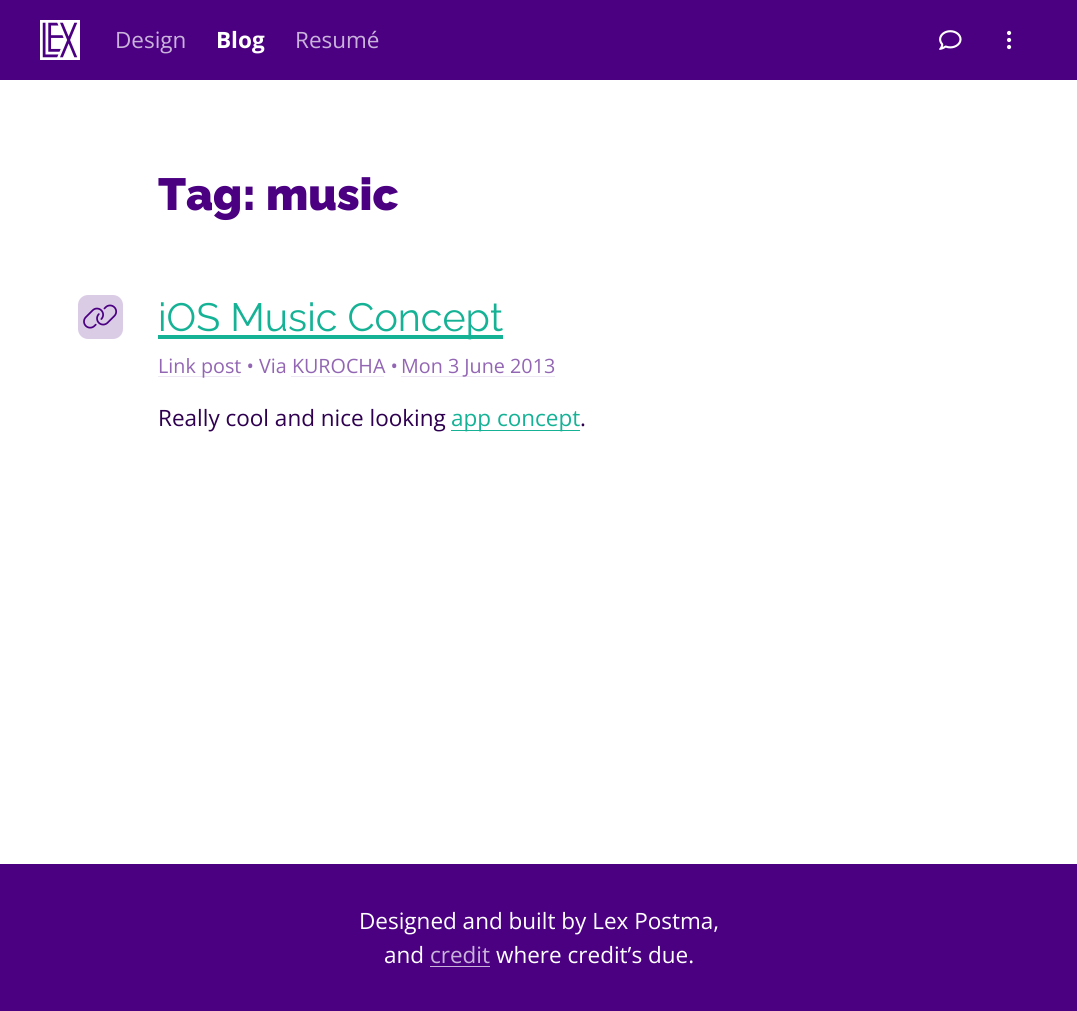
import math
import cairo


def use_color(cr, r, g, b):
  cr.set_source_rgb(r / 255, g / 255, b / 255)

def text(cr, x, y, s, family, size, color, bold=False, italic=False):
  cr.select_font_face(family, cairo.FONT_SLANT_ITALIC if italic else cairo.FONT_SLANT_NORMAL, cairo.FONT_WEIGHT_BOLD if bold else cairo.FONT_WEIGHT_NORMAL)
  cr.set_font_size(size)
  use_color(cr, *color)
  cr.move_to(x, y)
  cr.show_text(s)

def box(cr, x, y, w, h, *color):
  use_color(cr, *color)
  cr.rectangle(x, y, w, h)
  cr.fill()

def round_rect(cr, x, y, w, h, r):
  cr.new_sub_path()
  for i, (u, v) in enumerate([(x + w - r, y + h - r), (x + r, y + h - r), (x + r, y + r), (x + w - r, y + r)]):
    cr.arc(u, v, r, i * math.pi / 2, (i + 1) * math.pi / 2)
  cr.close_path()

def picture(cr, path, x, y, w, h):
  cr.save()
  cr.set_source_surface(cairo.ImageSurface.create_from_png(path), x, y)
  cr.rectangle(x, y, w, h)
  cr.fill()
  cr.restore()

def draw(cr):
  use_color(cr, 255, 255, 255)
  cr.paint()
  box(cr, 0, 0, 1077, 80, 75, 0, 130)
  picture(cr, "img_01.png", 40, 20, 40, 40)
  picture(cr, "img_02.png", 939, 30, 23, 20)
  picture(cr, "img_03.png", 1007, 30, 5, 20)
  box(cr, 158, 335, 345, 4, 22, 178, 150)
  use_color(cr, 219, 204, 230)
  round_rect(cr, 78, 295, 45, 44, 10)
  cr.fill()
  picture(cr, "img_04.png", 83, 304, 35, 25)
  box(cr, 158, 376, 82, 1, 237, 230, 243)
  box(cr, 401, 376, 154, 1, 237, 230, 243)
  box(cr, 451, 430, 129, 1, 22, 178, 150)
  box(cr, 0, 864, 1077, 147, 75, 0, 130)
  box(cr, 430, 966, 60, 1, 201, 179, 218)
  text(cr, 115, 48, "Design", "Open Sans", 22.5, (201, 179, 218))
  text(cr, 216, 48, "Blog", "Open Sans", 22.5, (255, 255, 255), bold=True)
  text(cr, 295, 48, "Resumé", "Open Sans", 22.5, (201, 179, 218))
  text(cr, 158, 210, "Tag: music", "Raleway Black", 45, (75, 0, 130))
  text(cr, 158, 331, "iOS Music Concept", "Raleway", 39.4, (22, 178, 150))
  text(cr, 158, 373, "Link post • Via KUROCHA •", "Open Sans", 19.75, (147, 102, 180))
  text(cr, 401, 373, "Mon 3 June 2013", "Open Sans", 19.75, (147, 102, 180))
  box(cr, 291, 376, 93, 1, 237, 230, 243)
  text(cr, 158, 426, "Really cool and nice looking", "Open Sans", 22.5, (46, 0, 79))
  text(cr, 451, 426, "app concept", "Open Sans", 22.5, (22, 178, 150))
  text(cr, 580, 426, ".", "Open Sans", 22.5, (46, 0, 79))
  text(cr, 359, 929, "Designed and built by Lex Postma,", "Open Sans", 22.5, (255, 255, 255))
  text(cr, 384, 963, "and", "Open Sans", 22.5, (255, 255, 255))
  text(cr, 430, 963, "credit", "Open Sans", 22.5, (201, 179, 218))
  text(cr, 496, 963, "where credit’s due.", "Open Sans", 22.5, (255, 255, 255))


surface = cairo.ImageSurface(cairo.FORMAT_RGB24, 1077, 1011)
cr = cairo.Context(surface)
options = cairo.FontOptions()
options.set_hint_metrics(cairo.HINT_METRICS_OFF)
options.set_hint_style(cairo.HINT_STYLE_NONE)
cr.set_font_options(options)
cr.set_miter_limit(4)
draw(cr)
surface.write_to_png("out.png")
